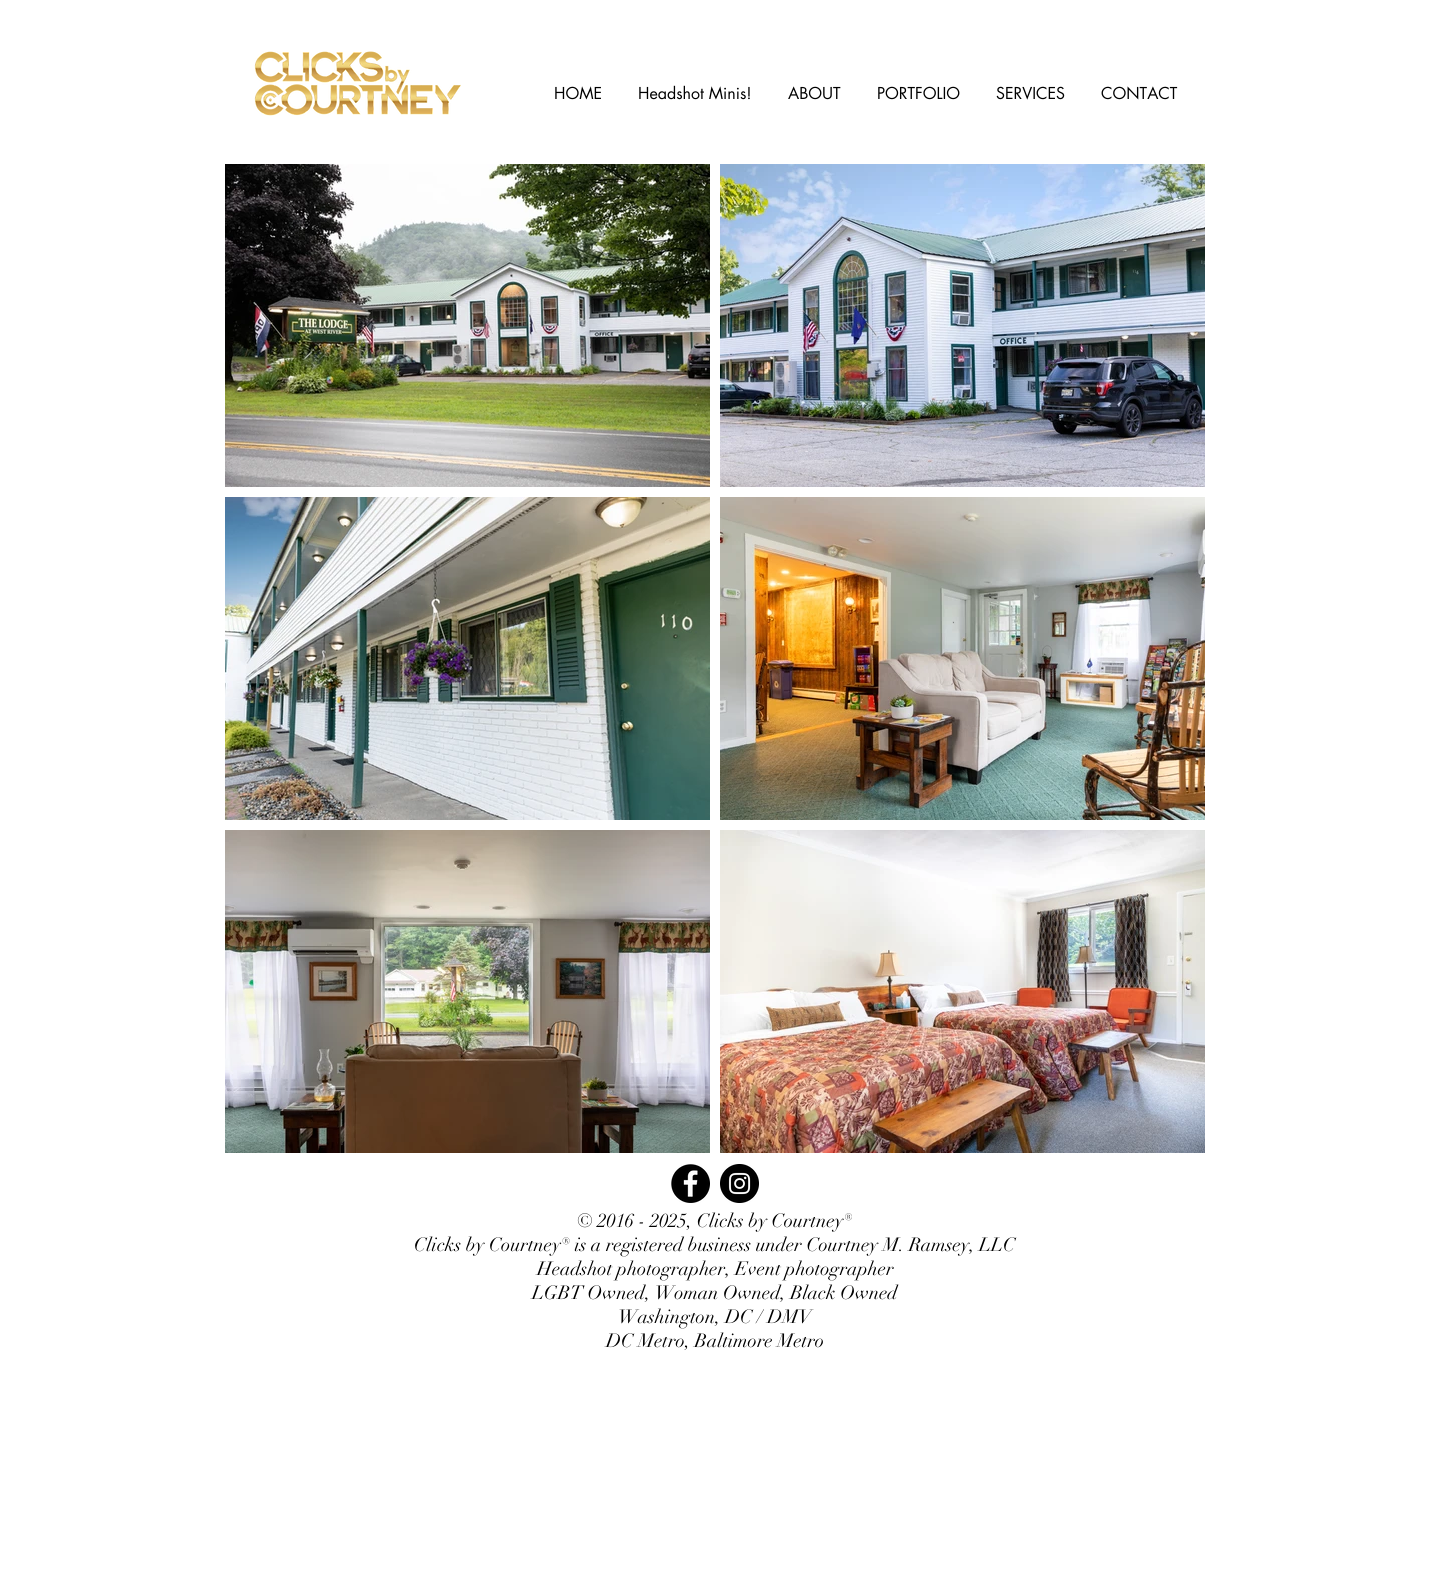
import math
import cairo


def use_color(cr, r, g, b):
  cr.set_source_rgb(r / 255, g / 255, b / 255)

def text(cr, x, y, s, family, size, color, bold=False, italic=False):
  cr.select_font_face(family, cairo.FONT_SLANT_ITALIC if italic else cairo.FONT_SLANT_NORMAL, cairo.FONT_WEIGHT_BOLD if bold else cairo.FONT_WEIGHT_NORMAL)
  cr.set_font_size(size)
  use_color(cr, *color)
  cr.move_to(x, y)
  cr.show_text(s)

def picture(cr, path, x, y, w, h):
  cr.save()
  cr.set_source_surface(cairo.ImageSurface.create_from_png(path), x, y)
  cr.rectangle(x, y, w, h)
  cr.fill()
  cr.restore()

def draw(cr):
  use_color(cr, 255, 255, 255)
  cr.paint()
  picture(cr, "img_01.png", 254, 51, 207, 65)
  picture(cr, "img_02.png", 225, 164, 485, 323)
  picture(cr, "img_03.png", 720, 164, 485, 323)
  picture(cr, "img_04.png", 225, 497, 485, 323)
  picture(cr, "img_05.png", 720, 497, 485, 323)
  picture(cr, "img_06.png", 225, 830, 485, 323)
  picture(cr, "img_07.png", 720, 830, 485, 323)
  picture(cr, "img_08.png", 671, 1164, 39, 39)
  picture(cr, "img_09.png", 720, 1164, 39, 39)
  text(cr, 554, 99, "HOME", "futura", 16, (0, 0, 0))
  text(cr, 638, 99, "Headshot Minis!", "futura", 16, (0, 0, 0))
  text(cr, 788, 99, "ABOUT", "futura", 16, (0, 0, 0))
  text(cr, 877, 99, "PORTFOLIO", "futura", 16, (0, 0, 0))
  text(cr, 996, 99, "SERVICES", "futura", 16, (0, 0, 0))
  text(cr, 1101, 99, "CONTACT", "futura", 16, (0, 0, 0))
  text(cr, 577, 1227, "© 2016 - 2025, Clicks by Courtney®", "didot", 19, (0, 0, 0))
  text(cr, 414, 1251, "Clicks by Courtney® is a registered business under Courtney M. Ramsey, LLC", "didot", 19, (0, 0, 0))
  text(cr, 537, 1275, "Headshot photographer, Event photographer", "didot", 19, (0, 0, 0))
  text(cr, 532, 1299, "LGBT Owned, Woman Owned, Black Owned", "didot", 19, (0, 0, 0))
  text(cr, 618, 1323, "Washington, DC / DMV", "didot", 19, (0, 0, 0))
  text(cr, 606, 1347, "DC Metro, Baltimore Metro", "didot", 19, (0, 0, 0))


surface = cairo.ImageSurface(cairo.FORMAT_RGB24, 1430, 1575)
cr = cairo.Context(surface)
options = cairo.FontOptions()
options.set_hint_metrics(cairo.HINT_METRICS_OFF)
options.set_hint_style(cairo.HINT_STYLE_NONE)
cr.set_font_options(options)
cr.set_miter_limit(4)
draw(cr)
surface.write_to_png("out.png")
